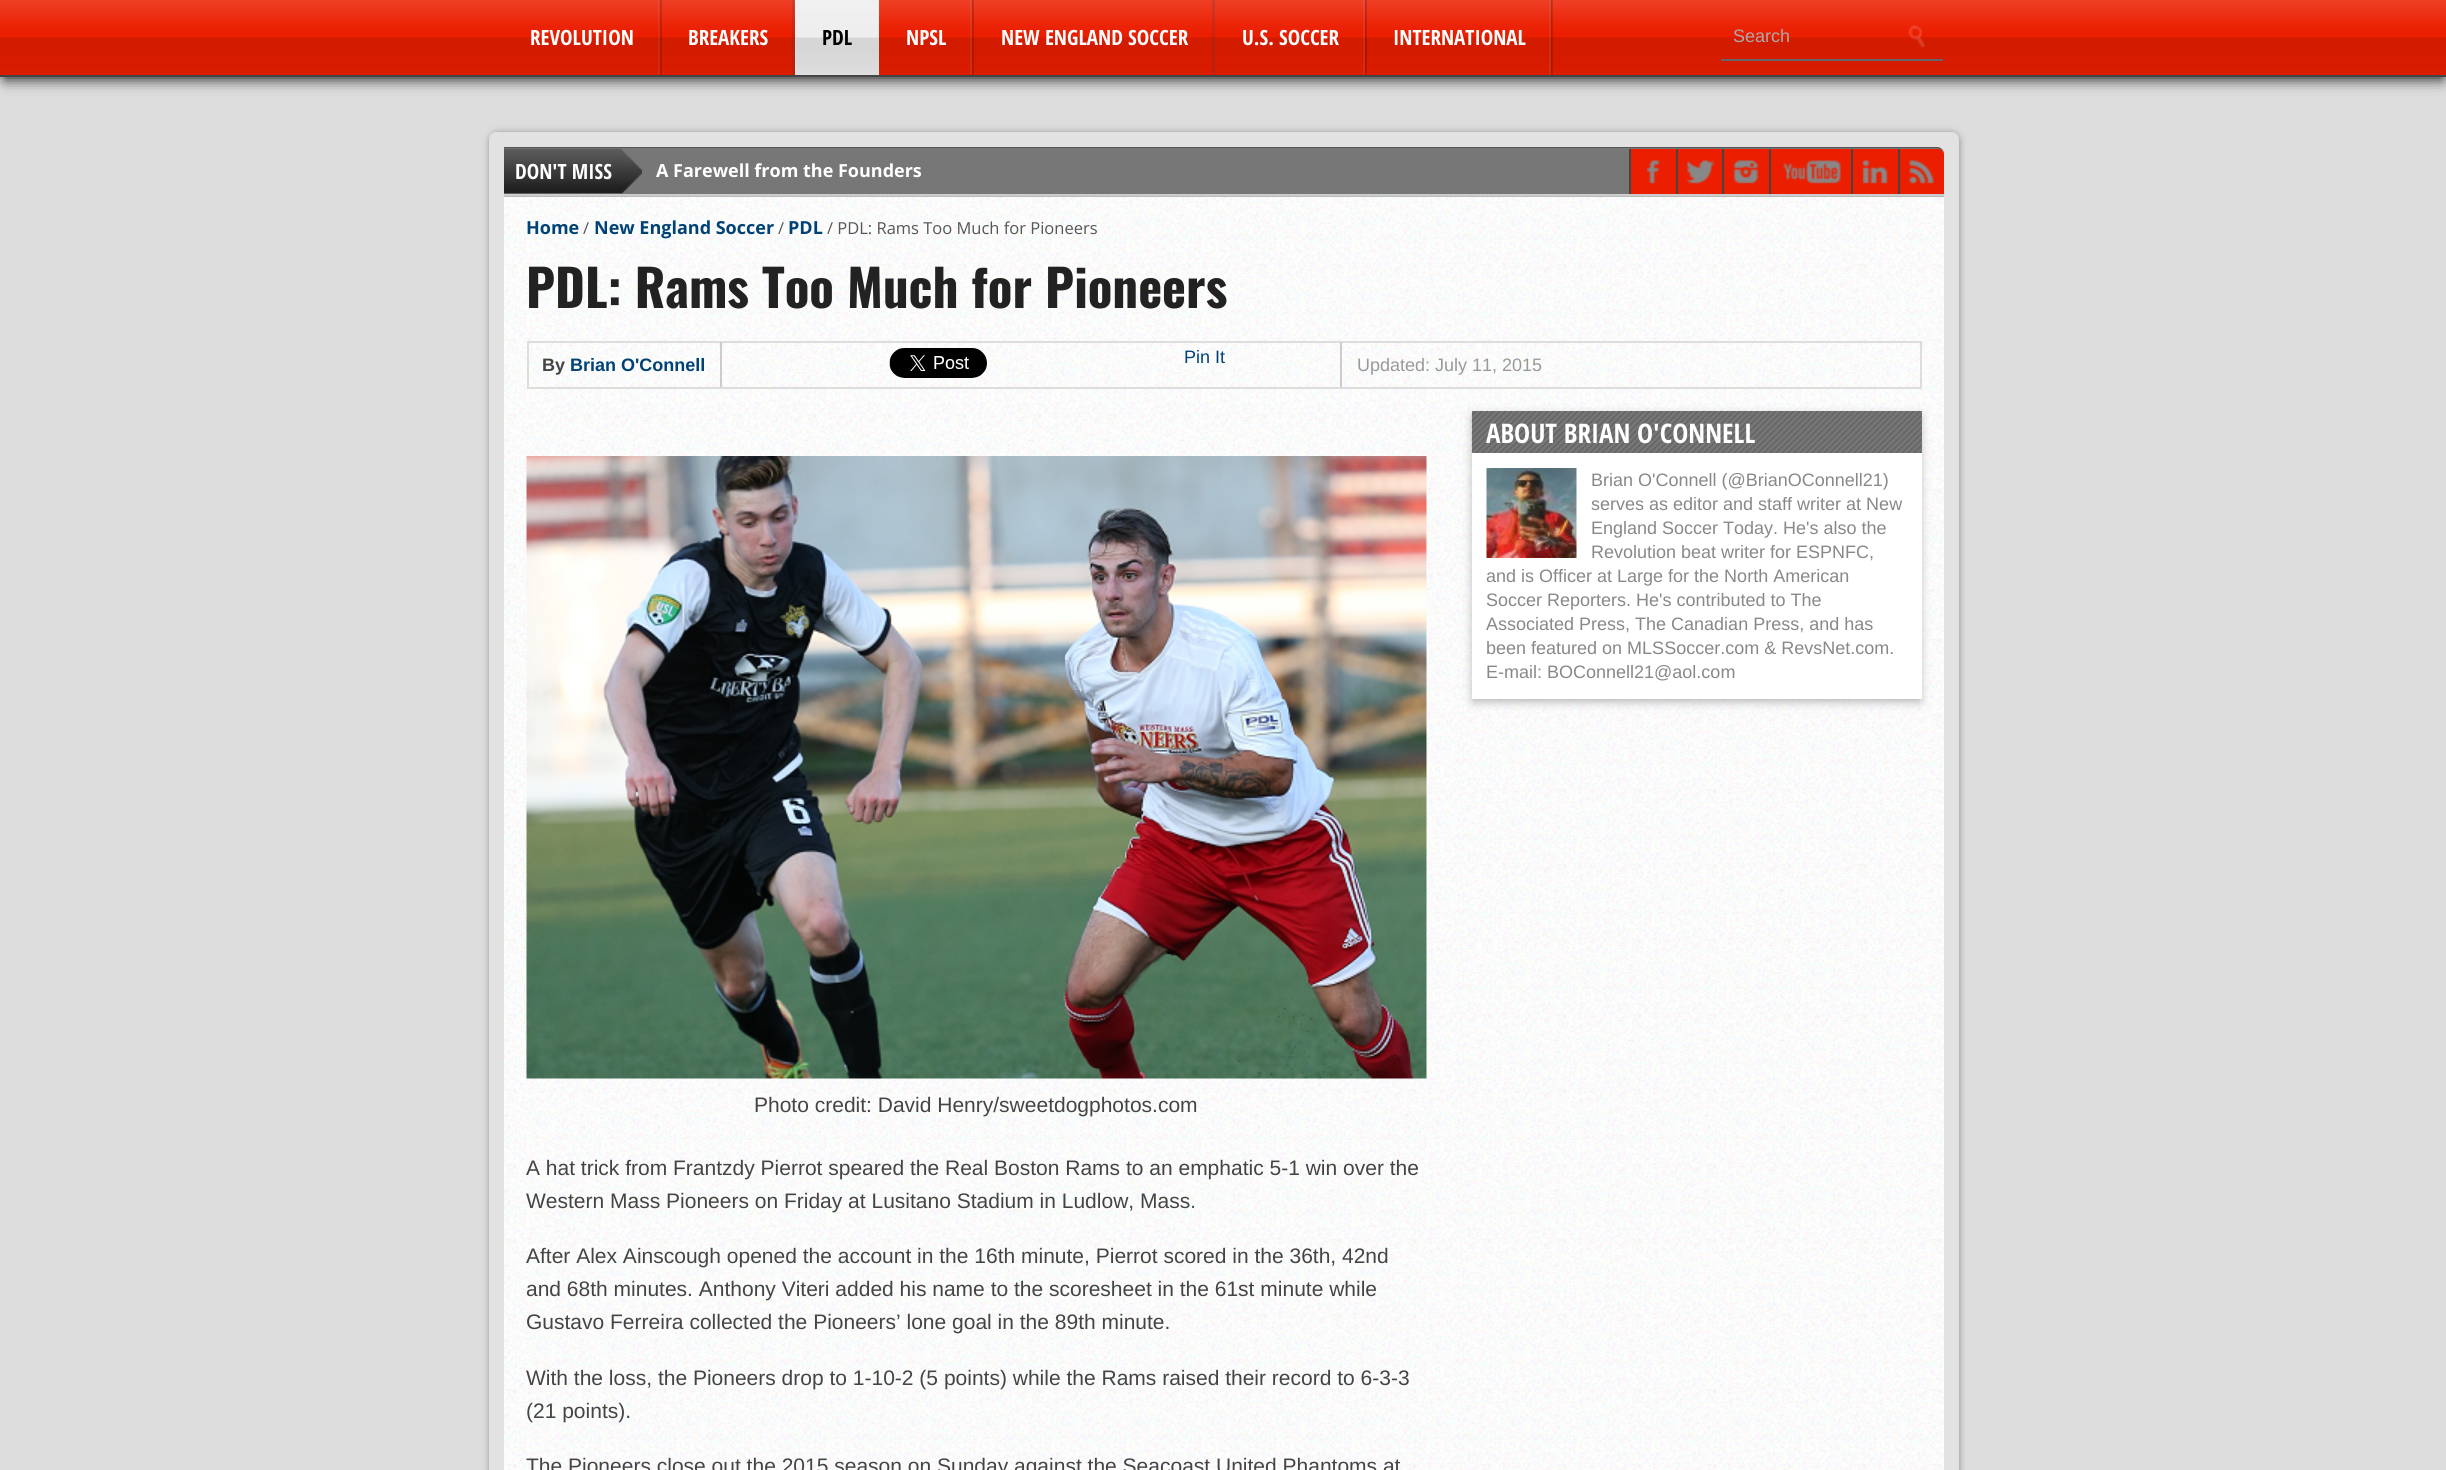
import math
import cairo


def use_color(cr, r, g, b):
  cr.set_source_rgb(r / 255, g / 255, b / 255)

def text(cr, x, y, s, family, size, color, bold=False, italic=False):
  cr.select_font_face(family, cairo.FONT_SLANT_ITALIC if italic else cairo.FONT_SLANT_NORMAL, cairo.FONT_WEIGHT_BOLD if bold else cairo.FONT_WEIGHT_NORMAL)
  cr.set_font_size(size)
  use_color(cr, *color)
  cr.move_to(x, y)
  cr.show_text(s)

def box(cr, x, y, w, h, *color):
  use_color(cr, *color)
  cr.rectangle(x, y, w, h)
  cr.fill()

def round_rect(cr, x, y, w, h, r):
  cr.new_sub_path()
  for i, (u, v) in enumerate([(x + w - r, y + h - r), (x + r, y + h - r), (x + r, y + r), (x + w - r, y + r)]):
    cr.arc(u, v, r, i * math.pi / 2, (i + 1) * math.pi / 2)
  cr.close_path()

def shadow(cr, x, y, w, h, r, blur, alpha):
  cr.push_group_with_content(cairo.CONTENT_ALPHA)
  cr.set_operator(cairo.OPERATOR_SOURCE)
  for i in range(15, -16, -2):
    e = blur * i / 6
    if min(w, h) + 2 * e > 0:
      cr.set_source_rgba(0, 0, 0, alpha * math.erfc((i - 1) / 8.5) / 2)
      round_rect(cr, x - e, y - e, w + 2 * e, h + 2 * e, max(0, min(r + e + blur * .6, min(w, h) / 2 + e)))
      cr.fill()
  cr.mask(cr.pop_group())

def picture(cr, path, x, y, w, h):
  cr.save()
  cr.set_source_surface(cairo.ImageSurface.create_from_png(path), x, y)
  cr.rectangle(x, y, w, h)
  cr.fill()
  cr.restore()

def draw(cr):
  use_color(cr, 221, 221, 221)
  cr.paint()
  use_color(cr, 0, 0, 0)
  shadow(cr, 5, 11, 2437, 67, 0, 7.5, 1)
  box(cr, 0, 0, 2446, 75, 235, 30, 0)
  picture(cr, "img_01.png", 0, 0, 2446, 75)
  box(cr, 0, 75, 2446, 2, 68, 68, 68)
  picture(cr, "img_02.png", 658, 0, 4, 75)
  cr.set_source_rgba(0.255, 0.255, 0.255, 0.2)
  cr.rectangle(792, 0, 3, 75)
  cr.fill()
  box(cr, 795, 0, 84, 75, 238, 238, 238)
  picture(cr, "img_03.png", 794, 0, 86, 75)
  picture(cr, "img_04.png", 970, 0, 4, 75)
  cr.set_source_rgba(0.255, 0.255, 0.255, 0.2)
  cr.rectangle(1212, 0, 3, 75)
  cr.fill()
  picture(cr, "img_05.png", 1363, 0, 4, 75)
  picture(cr, "img_06.png", 1549, 0, 4, 75)
  picture(cr, "img_07.png", 1908, 25, 17, 23)
  box(cr, 1721, 59, 222, 2, 102, 102, 102)
  cr.save()
  cr.set_fill_rule(cairo.FILL_RULE_EVEN_ODD)
  cr.new_path()
  cr.move_to(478, 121)
  cr.line_to(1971, 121)
  cr.line_to(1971, 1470)
  cr.line_to(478, 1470)
  cr.close_path()
  cr.move_to(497, 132)
  cr.line_to(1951, 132)
  cr.curve_to(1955.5, 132, 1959, 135.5, 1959, 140)
  cr.line_to(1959, 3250)
  cr.curve_to(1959, 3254.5, 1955.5, 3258, 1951, 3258)
  cr.line_to(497, 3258)
  cr.curve_to(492.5, 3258, 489, 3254.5, 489, 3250)
  cr.line_to(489, 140)
  cr.curve_to(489, 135.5, 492.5, 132, 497, 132)
  cr.close_path()
  cr.clip()
  use_color(cr, 0, 0, 0)
  shadow(cr, 494, 137, 1461, 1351, 3, 5, 1)
  cr.restore()
  picture(cr, "img_08.png", 489, 132, 1470, 1338)
  use_color(cr, 119, 119, 119)
  cr.new_path()
  cr.move_to(504, 147)
  cr.line_to(1936, 147)
  cr.curve_to(1940.5, 147, 1944, 150.5, 1944, 155)
  cr.line_to(1944, 197)
  cr.line_to(504, 197)
  cr.close_path()
  cr.fill()
  use_color(cr, 85, 85, 85)
  cr.new_path()
  cr.move_to(504, 147)
  cr.line_to(504, 148)
  cr.line_to(1936, 148)
  cr.curve_to(1941, 148, 1944, 151, 1944, 154)
  cr.curve_to(1944, 150, 1941, 147, 1936, 147)
  cr.close_path()
  cr.fill()
  box(cr, 504, 194, 1440, 2, 204, 204, 204)
  picture(cr, "img_09.png", 504, 148, 138, 46)
  use_color(cr, 235, 30, 0)
  cr.new_path()
  cr.move_to(1629, 149)
  cr.line_to(1629, 194)
  cr.line_to(1944, 194)
  cr.line_to(1944, 154)
  cr.curve_to(1944, 152, 1942, 150, 1940, 149)
  cr.close_path()
  cr.fill()
  box(cr, 1629, 149, 2, 45, 68, 68, 68)
  picture(cr, "img_10.png", 1646, 160, 14, 24)
  box(cr, 1676, 149, 2, 45, 68, 68, 68)
  picture(cr, "img_11.png", 1686, 160, 29, 24)
  box(cr, 1722, 149, 2, 45, 68, 68, 68)
  picture(cr, "img_12.png", 1733, 160, 26, 24)
  box(cr, 1769, 149, 2, 45, 68, 68, 68)
  picture(cr, "img_13.png", 1783, 160, 58, 24)
  box(cr, 1851, 149, 2, 45, 68, 68, 68)
  picture(cr, "img_14.png", 1862, 160, 26, 24)
  box(cr, 1898, 149, 2, 45, 68, 68, 68)
  picture(cr, "img_15.png", 1909, 160, 25, 24)
  picture(cr, "img_16.png", 504, 196, 1440, 1274)
  cr.rectangle(528, 342, 1393, 46)
  use_color(cr, 221, 221, 221)
  cr.stroke()
  box(cr, 720, 342, 2, 45, 204, 204, 204)
  box(cr, 1340, 342, 2, 45, 204, 204, 204)
  picture(cr, "img_17.png", 889, 348, 98, 30)
  use_color(cr, 170, 170, 170)
  shadow(cr, 1473, 416, 447, 285, 0, 5, 1)
  box(cr, 1472, 453, 450, 246, 255, 255, 255)
  box(cr, 1472, 411, 450, 42, 119, 119, 119)
  picture(cr, "img_18.png", 1471, 411, 451, 42)
  picture(cr, "img_19.png", 1486, 468, 91, 90)
  picture(cr, "img_20.png", 526, 456, 901, 623)
  text(cr, 530, 45, "REVOLUTION", "Open Sans Condensed", 21, (255, 255, 255), bold=True)
  text(cr, 688, 45, "BREAKERS", "Open Sans Condensed", 21, (255, 255, 255), bold=True)
  text(cr, 822, 45, "PDL", "Open Sans Condensed", 21, (0, 0, 0), bold=True)
  text(cr, 906, 45, "NPSL", "Open Sans Condensed", 21, (255, 255, 255), bold=True)
  text(cr, 1001, 45, "NEW ENGLAND SOCCER", "Open Sans Condensed", 21, (255, 255, 255), bold=True)
  text(cr, 1242, 45, "U.S. SOCCER", "Open Sans Condensed", 21, (255, 255, 255), bold=True)
  text(cr, 1393, 45, "INTERNATIONAL", "Open Sans Condensed", 21, (255, 255, 255), bold=True)
  text(cr, 1733, 42, "Search", "Liberation Sans", 18, (170, 170, 170))
  text(cr, 515, 179, "DON'T MISS", "Open Sans Condensed", 21, (255, 255, 255), bold=True)
  text(cr, 656, 177, "A Farewell from the Founders", "Open Sans", 18, (255, 255, 255), bold=True)
  text(cr, 526, 234, "Home", "Open Sans", 18, (0, 66, 118), bold=True)
  text(cr, 583, 234, "/", "Open Sans", 16.5, (85, 85, 85))
  text(cr, 594, 234, "New England Soccer", "Open Sans", 18, (0, 66, 118), bold=True)
  text(cr, 778, 234, "/", "Open Sans", 16.5, (85, 85, 85))
  text(cr, 788, 234, "PDL", "Open Sans", 18, (0, 66, 118), bold=True)
  text(cr, 827, 234, "/ PDL: Rams Too Much for Pioneers", "Open Sans", 16.5, (85, 85, 85))
  text(cr, 526, 308, "PDL: Rams Too Much for Pioneers", "Oswald", 51, (34, 34, 34), bold=True)
  text(cr, 542, 371, "By", "Liberation Sans", 18, (68, 68, 68), bold=True)
  text(cr, 570, 371, "Brian O'Connell", "Liberation Sans", 18, (0, 66, 118), bold=True)
  text(cr, 1184, 363, "Pin It", "Liberation Sans", 18, (0, 66, 118))
  text(cr, 1357, 371, "Updated: July 11, 2015", "Liberation Sans", 18, (153, 153, 153))
  text(cr, 1486, 443, "ABOUT BRIAN O'CONNELL", "Open Sans Condensed", 27, (255, 255, 255), bold=True)
  text(cr, 1591, 486, "Brian O'Connell (@BrianOConnell21)", "Liberation Sans", 18, (136, 136, 136))
  text(cr, 1591, 510, "serves as editor and staff writer at New", "Liberation Sans", 18, (136, 136, 136))
  text(cr, 1591, 534, "England Soccer Today. He's also the", "Liberation Sans", 18, (136, 136, 136))
  text(cr, 1591, 558, "Revolution beat writer for ESPNFC,", "Liberation Sans", 18, (136, 136, 136))
  text(cr, 1486, 582, "and is Officer at Large for the North American", "Liberation Sans", 18, (136, 136, 136))
  text(cr, 1486, 606, "Soccer Reporters. He's contributed to The", "Liberation Sans", 18, (136, 136, 136))
  text(cr, 1486, 630, "Associated Press, The Canadian Press, and has", "Liberation Sans", 18, (136, 136, 136))
  text(cr, 1486, 654, "been featured on MLSSoccer.com & RevsNet.com.", "Liberation Sans", 18, (136, 136, 136))
  text(cr, 1486, 678, "E-mail: BOConnell21@aol.com", "Liberation Sans", 18, (136, 136, 136))
  text(cr, 754, 1112, "Photo credit: David Henry/sweetdogphotos.com", "Liberation Sans", 21, (68, 68, 68))
  text(cr, 526, 1175, "A hat trick from Frantzdy Pierrot speared the Real Boston Rams to an emphatic 5-1 win over the", "Liberation Sans", 21, (68, 68, 68))
  text(cr, 526, 1208, "Western Mass Pioneers on Friday at Lusitano Stadium in Ludlow, Mass.", "Liberation Sans", 21, (68, 68, 68))
  text(cr, 526, 1263, "After Alex Ainscough opened the account in the 16th minute, Pierrot scored in the 36th, 42nd", "Liberation Sans", 21, (68, 68, 68))
  text(cr, 526, 1296, "and 68th minutes. Anthony Viteri added his name to the scoresheet in the 61st minute while", "Liberation Sans", 21, (68, 68, 68))
  text(cr, 526, 1329, "Gustavo Ferreira collected the Pioneers’ lone goal in the 89th minute.", "Liberation Sans", 21, (68, 68, 68))
  text(cr, 526, 1385, "With the loss, the Pioneers drop to 1-10-2 (5 points) while the Rams raised their record to 6-3-3", "Liberation Sans", 21, (68, 68, 68))
  text(cr, 526, 1418, "(21 points).", "Liberation Sans", 21, (68, 68, 68))
  text(cr, 526, 1473, "The Pioneers close out the 2015 season on Sunday against the Seacoast United Phantoms at", "Liberation Sans", 21, (68, 68, 68))


surface = cairo.ImageSurface(cairo.FORMAT_RGB24, 2446, 1470)
cr = cairo.Context(surface)
options = cairo.FontOptions()
options.set_hint_metrics(cairo.HINT_METRICS_OFF)
options.set_hint_style(cairo.HINT_STYLE_NONE)
cr.set_font_options(options)
cr.set_miter_limit(4)
draw(cr)
surface.write_to_png("out.png")
